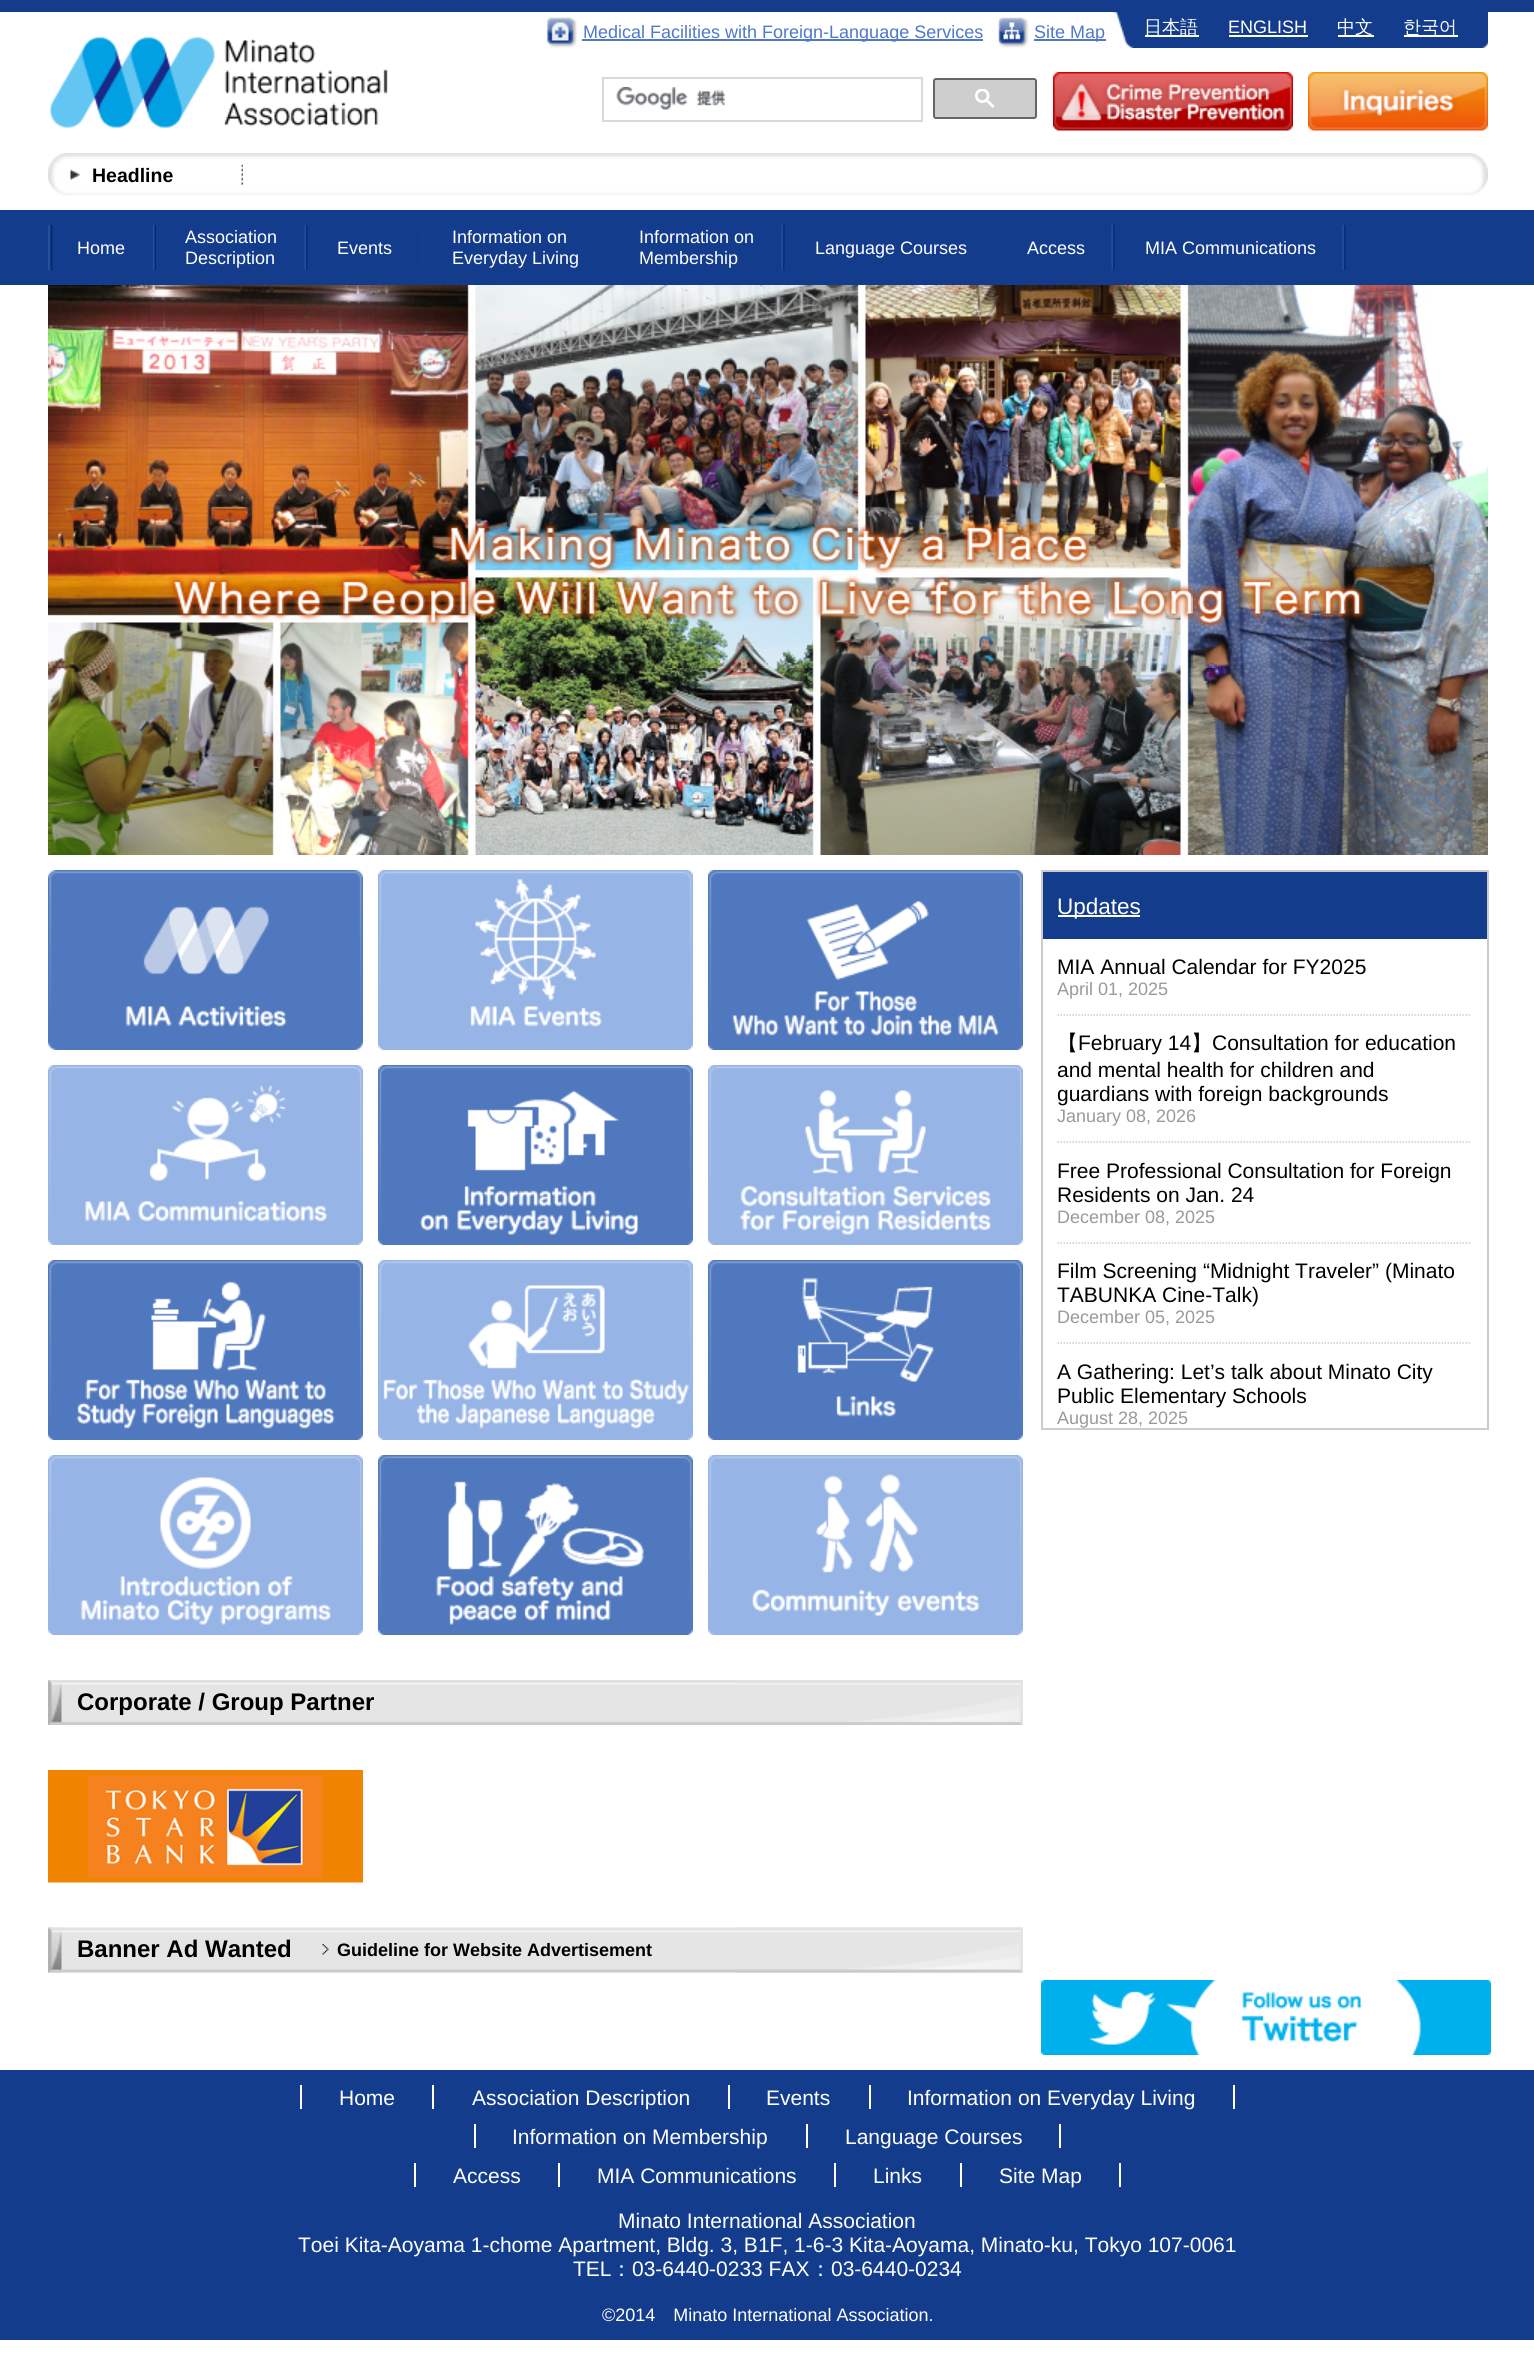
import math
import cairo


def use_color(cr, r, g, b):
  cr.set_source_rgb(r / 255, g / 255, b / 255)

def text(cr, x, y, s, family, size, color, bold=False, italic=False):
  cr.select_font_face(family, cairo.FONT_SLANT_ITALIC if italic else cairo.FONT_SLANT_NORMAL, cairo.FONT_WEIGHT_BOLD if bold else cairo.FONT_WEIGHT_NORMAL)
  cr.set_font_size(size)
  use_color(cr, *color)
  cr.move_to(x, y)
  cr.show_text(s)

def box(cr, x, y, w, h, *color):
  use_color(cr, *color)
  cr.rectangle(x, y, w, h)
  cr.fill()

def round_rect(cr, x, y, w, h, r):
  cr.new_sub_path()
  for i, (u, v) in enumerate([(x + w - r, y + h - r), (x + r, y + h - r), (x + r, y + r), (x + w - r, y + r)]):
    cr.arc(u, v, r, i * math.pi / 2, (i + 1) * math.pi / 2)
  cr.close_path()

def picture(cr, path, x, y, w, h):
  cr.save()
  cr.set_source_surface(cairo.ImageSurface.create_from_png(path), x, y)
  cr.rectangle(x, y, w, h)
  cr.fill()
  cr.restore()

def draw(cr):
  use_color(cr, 255, 255, 255)
  cr.paint()
  box(cr, 0, 0, 1534, 12, 20, 60, 140)
  picture(cr, "img_01.png", 546, 17, 31, 31)
  box(cr, 582, 39, 401, 2, 80, 120, 200)
  picture(cr, "img_02.png", 998, 17, 31, 31)
  box(cr, 1034, 39, 72, 2, 80, 120, 200)
  picture(cr, "img_03.png", 1113, 12, 375, 36)
  box(cr, 1145, 35, 54, 2, 255, 255, 255)
  box(cr, 1229, 35, 79, 2, 255, 255, 255)
  box(cr, 1338, 35, 36, 2, 255, 255, 255)
  box(cr, 1404, 35, 54, 2, 255, 255, 255)
  picture(cr, "img_04.png", 49, 37, 339, 91)
  cr.rectangle(603, 78, 319, 43)
  use_color(cr, 217, 217, 217)
  cr.stroke()
  picture(cr, "img_05.png", 616, 87, 110, 23)
  use_color(cr, 206, 206, 206)
  round_rect(cr, 934, 79, 102, 39, 2)
  cr.fill_preserve()
  use_color(cr, 102, 102, 102)
  cr.stroke()
  picture(cr, "img_06.png", 975, 89, 20, 19)
  picture(cr, "img_07.png", 1053, 72, 240, 59)
  picture(cr, "img_08.png", 1308, 72, 180, 59)
  picture(cr, "img_09.png", 48, 153, 195, 42)
  picture(cr, "img_10.png", 243, 153, 1245, 42)
  box(cr, 0, 210, 1534, 75, 20, 60, 140)
  picture(cr, "img_11.png", 48, 225, 108, 45)
  picture(cr, "img_12.png", 304, 225, 4, 45)
  box(cr, 420, 225, 3, 45, 24, 62, 138)
  box(cr, 606, 225, 3, 45, 22, 60, 136)
  picture(cr, "img_12.png", 781, 225, 4, 45)
  box(cr, 993, 225, 3, 45, 22, 60, 136)
  picture(cr, "img_12.png", 1111, 225, 4, 45)
  picture(cr, "img_12.png", 1342, 225, 4, 45)
  picture(cr, "img_13.png", 48, 285, 1440, 570)
  box(cr, 1043, 872, 444, 67, 20, 60, 140)
  box(cr, 1041, 870, 447, 2, 204, 204, 204)
  box(cr, 1487, 870, 2, 560, 204, 204, 204)
  box(cr, 1041, 870, 2, 69, 204, 204, 204)
  box(cr, 1058, 915, 82, 2, 255, 255, 255)
  box(cr, 1041, 1428, 447, 2, 204, 204, 204)
  box(cr, 1041, 939, 2, 491, 204, 204, 204)
  cr.new_path()
  cr.move_to(1057.5, 1015)
  cr.line_to(1471.5, 1015)
  cr.set_line_width(1.5)
  cr.set_dash([1.5, 1.5])
  cr.stroke()
  cr.new_path()
  cr.move_to(1057.5, 1142)
  cr.line_to(1471.5, 1142)
  cr.stroke()
  cr.new_path()
  cr.move_to(1057.5, 1243)
  cr.line_to(1471.5, 1243)
  cr.stroke()
  cr.new_path()
  cr.move_to(1057.5, 1343)
  cr.line_to(1471.5, 1343)
  cr.stroke()
  picture(cr, "img_14.png", 1041, 1980, 450, 75)
  picture(cr, "img_15.png", 48, 870, 315, 180)
  picture(cr, "img_16.png", 378, 870, 315, 180)
  picture(cr, "img_17.png", 708, 870, 315, 180)
  picture(cr, "img_18.png", 48, 1065, 315, 180)
  picture(cr, "img_19.png", 378, 1065, 315, 180)
  picture(cr, "img_20.png", 708, 1065, 315, 180)
  picture(cr, "img_21.png", 48, 1260, 315, 180)
  picture(cr, "img_22.png", 378, 1260, 315, 180)
  picture(cr, "img_23.png", 708, 1260, 315, 180)
  picture(cr, "img_24.png", 48, 1455, 315, 180)
  picture(cr, "img_25.png", 378, 1455, 315, 180)
  picture(cr, "img_26.png", 708, 1455, 315, 180)
  picture(cr, "img_27.png", 48, 1680, 975, 45)
  picture(cr, "img_28.png", 48, 1770, 315, 113)
  picture(cr, "img_29.png", 48, 1927, 975, 46)
  picture(cr, "img_30.png", 322, 1944, 7, 11)
  box(cr, 0, 2070, 1534, 270, 20, 60, 140)
  box(cr, 300, 2085, 2, 24, 255, 255, 255)
  box(cr, 432, 2085, 2, 24, 255, 255, 255)
  box(cr, 728, 2085, 2, 24, 255, 255, 255)
  box(cr, 1233, 2085, 2, 24, 255, 255, 255)
  box(cr, 869, 2085, 2, 24, 255, 255, 255)
  box(cr, 474, 2124, 2, 24, 255, 255, 255)
  box(cr, 1059, 2124, 2, 24, 255, 255, 255)
  box(cr, 806, 2124, 2, 24, 255, 255, 255)
  box(cr, 414, 2163, 2, 24, 255, 255, 255)
  box(cr, 558, 2163, 2, 24, 255, 255, 255)
  box(cr, 834, 2163, 2, 24, 255, 255, 255)
  box(cr, 1119, 2163, 2, 24, 255, 255, 255)
  box(cr, 960, 2163, 2, 24, 255, 255, 255)
  text(cr, 583, 38, "Medical Facilities with Foreign-Language Services", "Liberation Sans", 18, (80, 120, 200))
  text(cr, 1034, 38, "Site Map", "Liberation Sans", 18, (80, 120, 200))
  text(cr, 1144, 33, "日本語", "WenQuanYi Zen Hei Medium", 18, (255, 255, 255))
  text(cr, 1228, 33, "ENGLISH", "Liberation Sans", 18, (255, 255, 255))
  text(cr, 1337, 33, "中文", "WenQuanYi Zen Hei Medium", 18, (255, 255, 255))
  text(cr, 1403, 33, "한국어", "WenQuanYi Zen Hei Medium", 18, (255, 255, 255))
  text(cr, 92, 182, "Headline", "Liberation Sans", 19.5, (0, 0, 0), bold=True)
  text(cr, 77, 254, "Home", "Liberation Sans", 18, (255, 255, 255))
  text(cr, 185, 243, "Association", "Liberation Sans", 18, (255, 255, 255))
  text(cr, 185, 264, "Description", "Liberation Sans", 18, (255, 255, 255))
  text(cr, 337, 254, "Events", "Liberation Sans", 18, (255, 255, 255))
  text(cr, 452, 243, "Information on", "Liberation Sans", 18, (255, 255, 255))
  text(cr, 452, 264, "Everyday Living", "Liberation Sans", 18, (255, 255, 255))
  text(cr, 639, 243, "Information on", "Liberation Sans", 18, (255, 255, 255))
  text(cr, 639, 264, "Membership", "Liberation Sans", 18, (255, 255, 255))
  text(cr, 815, 254, "Language Courses", "Liberation Sans", 18, (255, 255, 255))
  text(cr, 1027, 254, "Access", "Liberation Sans", 18, (255, 255, 255))
  text(cr, 1145, 254, "MIA Communications", "Liberation Sans", 18, (255, 255, 255))
  text(cr, 1057, 914, "Updates", "Liberation Sans", 22.5, (255, 255, 255))
  text(cr, 1057, 974, "MIA Annual Calendar for FY2025", "Liberation Sans", 21, (0, 0, 0))
  text(cr, 1057, 995, "April 01, 2025", "Liberation Sans", 18, (153, 153, 153))
  text(cr, 1057, 1050, "【", "WenQuanYi Zen Hei Medium", 21, (0, 0, 0))
  text(cr, 1078, 1050, "February 14", "Liberation Sans", 21, (0, 0, 0))
  text(cr, 1191, 1050, "】", "WenQuanYi Zen Hei Medium", 21, (0, 0, 0))
  text(cr, 1212, 1050, "Consultation for education", "Liberation Sans", 21, (0, 0, 0))
  text(cr, 1057, 1077, "and mental health for children and", "Liberation Sans", 21, (0, 0, 0))
  text(cr, 1057, 1101, "guardians with foreign backgrounds", "Liberation Sans", 21, (0, 0, 0))
  text(cr, 1057, 1122, "January 08, 2026", "Liberation Sans", 18, (153, 153, 153))
  text(cr, 1057, 1178, "Free Professional Consultation for Foreign", "Liberation Sans", 21, (0, 0, 0))
  text(cr, 1057, 1202, "Residents on Jan. 24", "Liberation Sans", 21, (0, 0, 0))
  text(cr, 1057, 1223, "December 08, 2025", "Liberation Sans", 18, (153, 153, 153))
  text(cr, 1057, 1278, "Film Screening “Midnight Traveler” (Minato", "Liberation Sans", 21, (0, 0, 0))
  text(cr, 1057, 1302, "TABUNKA Cine-Talk)", "Liberation Sans", 21, (0, 0, 0))
  text(cr, 1057, 1323, "December 05, 2025", "Liberation Sans", 18, (153, 153, 153))
  text(cr, 1057, 1379, "A Gathering: Let’s talk about Minato City", "Liberation Sans", 21, (0, 0, 0))
  text(cr, 1057, 1403, "Public Elementary Schools", "Liberation Sans", 21, (0, 0, 0))
  text(cr, 1057, 1424, "August 28, 2025", "Liberation Sans", 18, (153, 153, 153))
  text(cr, 77, 1710, "Corporate / Group Partner", "Liberation Sans", 24, (0, 0, 0), bold=True)
  text(cr, 77, 1957, "Banner Ad Wanted", "Liberation Sans", 24, (0, 0, 0), bold=True)
  text(cr, 337, 1956, "Guideline for Website Advertisement", "Liberation Sans", 18, (0, 0, 0), bold=True)
  text(cr, 339, 2105, "Home", "Liberation Sans", 21, (255, 255, 255))
  text(cr, 472, 2105, "Association Description", "Liberation Sans", 21, (255, 255, 255))
  text(cr, 766, 2105, "Events", "Liberation Sans", 21, (255, 255, 255))
  text(cr, 907, 2105, "Information on Everyday Living", "Liberation Sans", 21, (255, 255, 255))
  text(cr, 512, 2144, "Information on Membership", "Liberation Sans", 21, (255, 255, 255))
  text(cr, 845, 2144, "Language Courses", "Liberation Sans", 21, (255, 255, 255))
  text(cr, 453, 2183, "Access", "Liberation Sans", 21, (255, 255, 255))
  text(cr, 597, 2183, "MIA Communications", "Liberation Sans", 21, (255, 255, 255))
  text(cr, 873, 2183, "Links", "Liberation Sans", 21, (255, 255, 255))
  text(cr, 999, 2183, "Site Map", "Liberation Sans", 21, (255, 255, 255))
  text(cr, 618, 2228, "Minato International Association", "Liberation Sans", 21, (255, 255, 255))
  text(cr, 298, 2252, "Toei Kita-Aoyama 1-chome Apartment, Bldg. 3, B1F, 1-6-3 Kita-Aoyama, Minato-ku, Tokyo 107-0061", "Liberation Sans", 21, (255, 255, 255))
  text(cr, 573, 2276, "TEL", "Liberation Sans", 21, (255, 255, 255))
  text(cr, 611, 2276, "：", "WenQuanYi Zen Hei Medium", 21, (255, 255, 255))
  text(cr, 632, 2276, "03-6440-0233 FAX", "Liberation Sans", 21, (255, 255, 255))
  text(cr, 810, 2276, "：", "WenQuanYi Zen Hei Medium", 21, (255, 255, 255))
  text(cr, 831, 2276, "03-6440-0234", "Liberation Sans", 21, (255, 255, 255))
  text(cr, 602, 2321, "©2014 Minato International Association.", "Liberation Sans", 18, (255, 255, 255))


surface = cairo.ImageSurface(cairo.FORMAT_RGB24, 1534, 2365)
cr = cairo.Context(surface)
options = cairo.FontOptions()
options.set_hint_metrics(cairo.HINT_METRICS_OFF)
options.set_hint_style(cairo.HINT_STYLE_NONE)
cr.set_font_options(options)
cr.set_miter_limit(4)
draw(cr)
surface.write_to_png("out.png")
